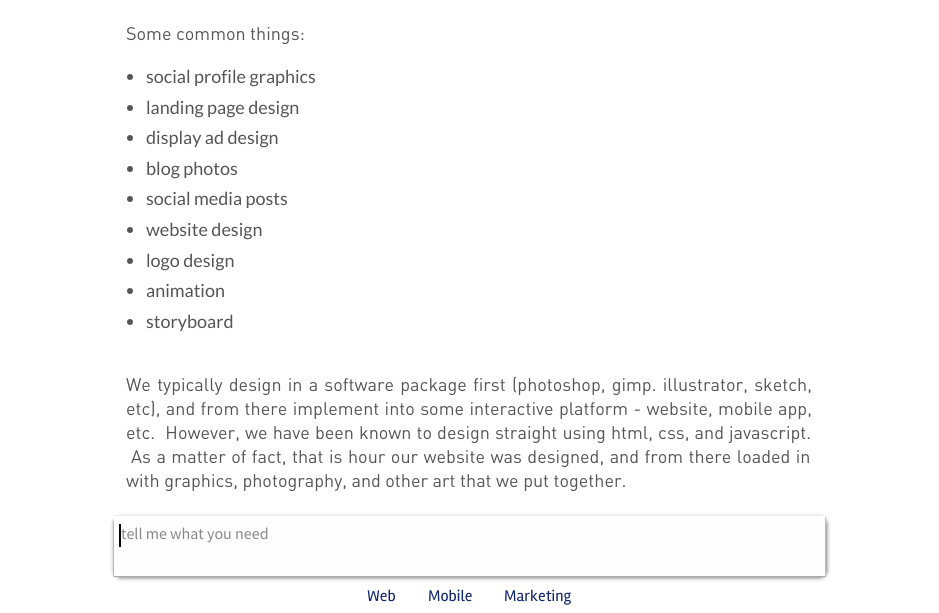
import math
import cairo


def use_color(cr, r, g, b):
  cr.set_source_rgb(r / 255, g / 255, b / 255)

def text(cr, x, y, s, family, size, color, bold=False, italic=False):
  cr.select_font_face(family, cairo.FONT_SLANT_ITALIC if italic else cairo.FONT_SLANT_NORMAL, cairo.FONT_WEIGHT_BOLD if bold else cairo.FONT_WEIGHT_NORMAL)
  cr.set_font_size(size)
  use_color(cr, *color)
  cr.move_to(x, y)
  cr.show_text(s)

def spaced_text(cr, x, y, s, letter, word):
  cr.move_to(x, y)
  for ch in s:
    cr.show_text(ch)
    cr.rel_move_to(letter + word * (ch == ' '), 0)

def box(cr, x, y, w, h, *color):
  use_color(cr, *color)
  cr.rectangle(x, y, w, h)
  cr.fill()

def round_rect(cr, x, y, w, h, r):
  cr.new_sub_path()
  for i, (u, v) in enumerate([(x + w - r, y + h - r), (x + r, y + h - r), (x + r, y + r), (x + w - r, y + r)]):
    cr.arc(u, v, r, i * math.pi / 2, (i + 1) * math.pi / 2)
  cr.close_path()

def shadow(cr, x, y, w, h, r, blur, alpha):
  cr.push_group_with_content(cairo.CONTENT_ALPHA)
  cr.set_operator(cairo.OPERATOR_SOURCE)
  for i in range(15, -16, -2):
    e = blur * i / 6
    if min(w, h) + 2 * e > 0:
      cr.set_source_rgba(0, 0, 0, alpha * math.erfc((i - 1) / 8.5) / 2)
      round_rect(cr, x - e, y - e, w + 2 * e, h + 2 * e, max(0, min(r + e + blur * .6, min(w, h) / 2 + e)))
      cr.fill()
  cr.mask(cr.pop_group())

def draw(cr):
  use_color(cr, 255, 255, 255)
  cr.paint()
  use_color(cr, 85, 85, 85)
  cr.arc(130, 77, 3, 0, 2 * math.pi)
  cr.fill()
  cr.arc(130, 108, 3, 0, 2 * math.pi)
  cr.fill()
  cr.arc(130, 138, 3, 0, 2 * math.pi)
  cr.fill()
  cr.arc(130, 169, 3, 0, 2 * math.pi)
  cr.fill()
  cr.arc(130, 199, 3, 0, 2 * math.pi)
  cr.fill()
  cr.arc(130, 230, 3, 0, 2 * math.pi)
  cr.fill()
  cr.arc(130, 261, 3, 0, 2 * math.pi)
  cr.fill()
  cr.arc(130, 291, 3, 0, 2 * math.pi)
  cr.fill()
  cr.arc(130, 322, 3, 0, 2 * math.pi)
  cr.fill()
  use_color(cr, 68, 68, 68)
  shadow(cr, 115, 518, 711, 59, 6, 2.5, 1)
  use_color(cr, 187, 187, 187)
  cr.new_path()
  cr.move_to(826, 577)
  cr.line_to(826, 521)
  cr.curve_to(826, 520, 826, 518, 825, 517)
  cr.line_to(824, 518)
  cr.line_to(825, 521)
  cr.line_to(825, 576)
  cr.close_path()
  cr.fill()
  use_color(cr, 170, 170, 170)
  cr.new_path()
  cr.move_to(826, 577)
  cr.line_to(825, 576)
  cr.line_to(114, 576)
  cr.line_to(113, 577)
  cr.close_path()
  cr.fill()
  use_color(cr, 187, 187, 187)
  cr.new_path()
  cr.move_to(113, 577)
  cr.line_to(114, 576)
  cr.line_to(114, 523)
  cr.curve_to(114, 522, 115, 520, 116, 519)
  cr.line_to(115, 518)
  cr.curve_to(114, 519, 113, 521, 113, 523)
  cr.close_path()
  cr.fill()
  box(cr, 114, 515, 711, 1, 238, 238, 238)
  box(cr, 114, 516, 711, 60, 254, 254, 254)
  box(cr, 119, 524, 2, 23, 0, 0, 0)
  text(cr, 126, 40, "Some common things:", "DIN", 18, (85, 85, 85))
  text(cr, 146, 83, "social profile graphics", "Lato", 18, (85, 85, 85))
  text(cr, 146, 114, "landing page design", "Lato", 18, (85, 85, 85))
  text(cr, 146, 144, "display ad design", "Lato", 18, (85, 85, 85))
  text(cr, 146, 175, "blog photos", "Lato", 18, (85, 85, 85))
  text(cr, 146, 205, "social media posts", "Lato", 18, (85, 85, 85))
  text(cr, 146, 236, "website design", "Lato", 18, (85, 85, 85))
  text(cr, 146, 267, "logo design", "Lato", 18, (85, 85, 85))
  text(cr, 146, 297, "animation", "Lato", 18, (85, 85, 85))
  text(cr, 146, 328, "storyboard", "Lato", 18, (85, 85, 85))
  cr.select_font_face("DIN")
  spaced_text(cr, 126, 391, "We typically design in a software package first (photoshop, gimp. illustrator, sketch,", 0, 1.75)
  spaced_text(cr, 126, 415, "etc), and from there implement into some interactive platform - website, mobile app,", 0, 0.9)
  spaced_text(cr, 126, 439, "etc.  However, we have been known to design straight using html, css, and javascript.", 0, 0.6)
  spaced_text(cr, 131, 463, "As a matter of fact, that is hour our website was designed, and from there loaded in", 0, 1)
  text(cr, 126, 487, "with graphics, photography, and other art that we put together.", "DIN", 18, (85, 85, 85))
  text(cr, 121, 539, "tell me what you need", "Source Sans Pro", 16, (136, 136, 136))
  text(cr, 367, 601, "Web", "Rambla", 16, (19, 40, 107))
  text(cr, 428, 601, "Mobile", "Rambla", 16, (19, 40, 107))
  text(cr, 504, 601, "Marketing", "Rambla", 16, (19, 40, 107))


surface = cairo.ImageSurface(cairo.FORMAT_RGB24, 939, 613)
cr = cairo.Context(surface)
options = cairo.FontOptions()
options.set_hint_metrics(cairo.HINT_METRICS_OFF)
options.set_hint_style(cairo.HINT_STYLE_NONE)
cr.set_font_options(options)
cr.set_miter_limit(4)
draw(cr)
surface.write_to_png("out.png")
